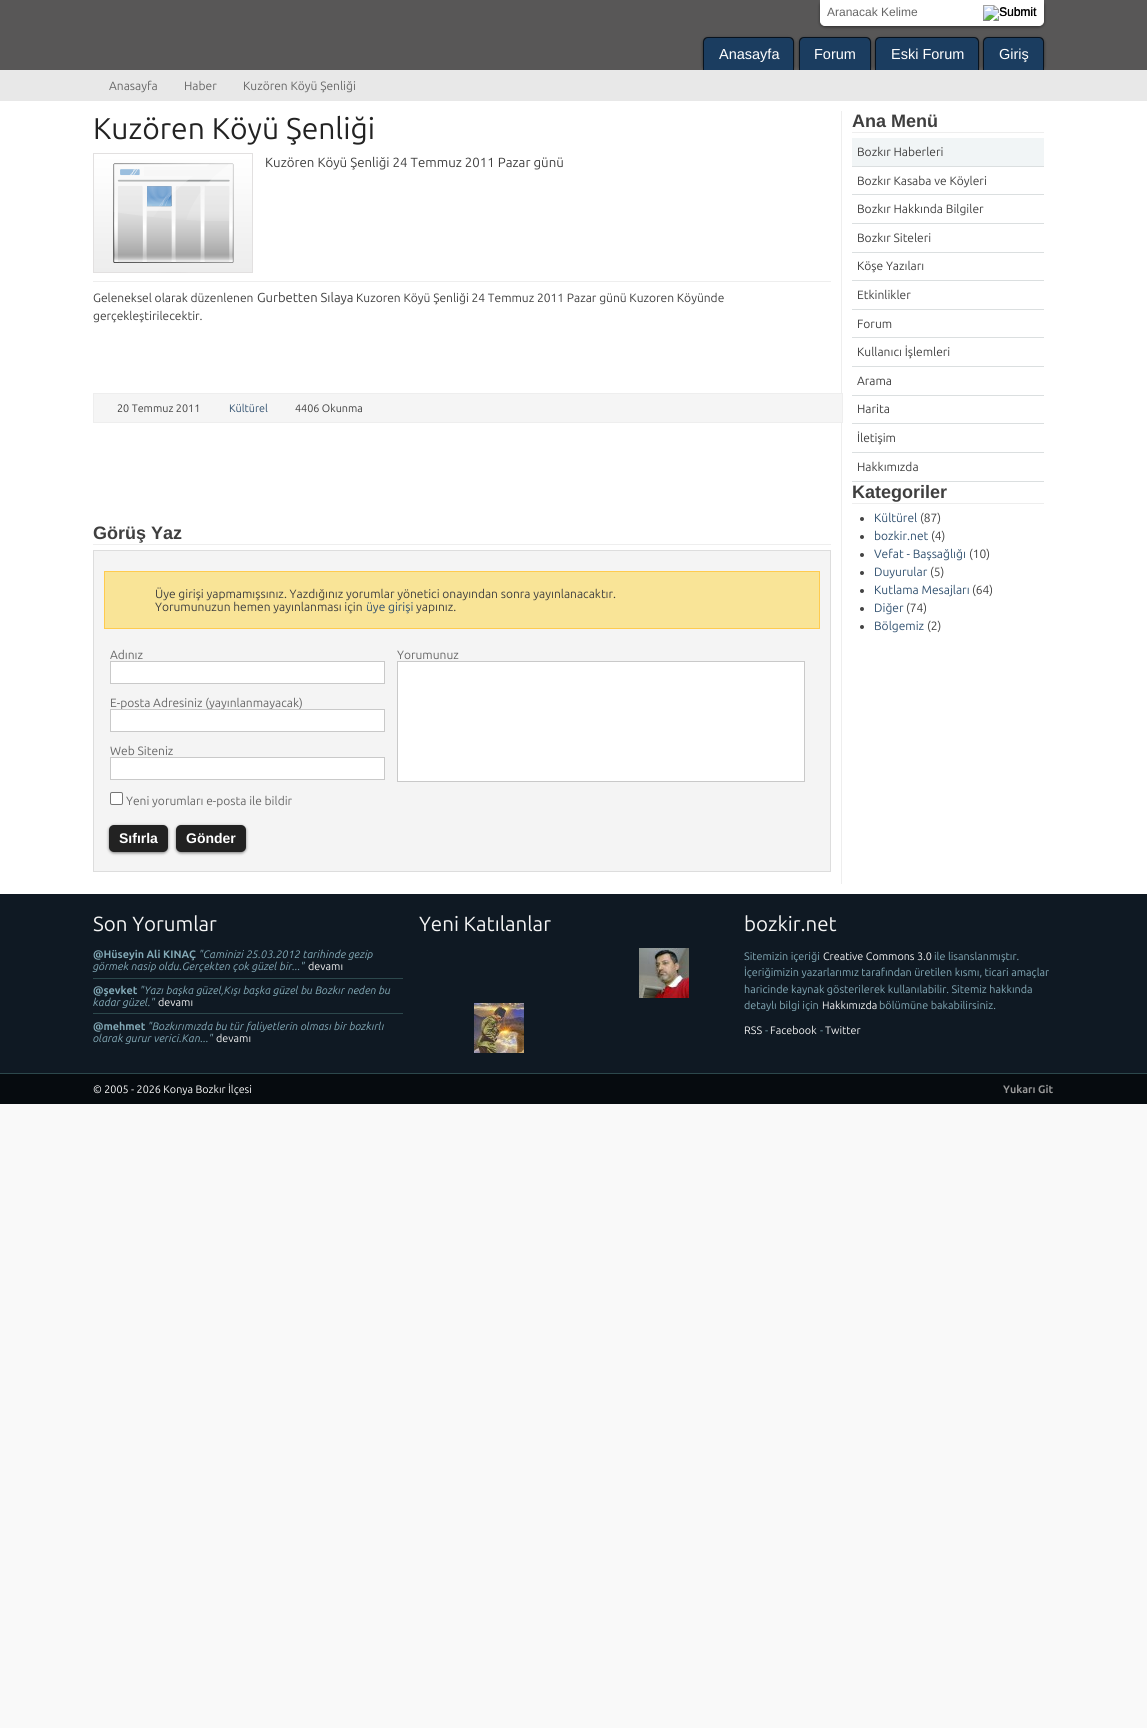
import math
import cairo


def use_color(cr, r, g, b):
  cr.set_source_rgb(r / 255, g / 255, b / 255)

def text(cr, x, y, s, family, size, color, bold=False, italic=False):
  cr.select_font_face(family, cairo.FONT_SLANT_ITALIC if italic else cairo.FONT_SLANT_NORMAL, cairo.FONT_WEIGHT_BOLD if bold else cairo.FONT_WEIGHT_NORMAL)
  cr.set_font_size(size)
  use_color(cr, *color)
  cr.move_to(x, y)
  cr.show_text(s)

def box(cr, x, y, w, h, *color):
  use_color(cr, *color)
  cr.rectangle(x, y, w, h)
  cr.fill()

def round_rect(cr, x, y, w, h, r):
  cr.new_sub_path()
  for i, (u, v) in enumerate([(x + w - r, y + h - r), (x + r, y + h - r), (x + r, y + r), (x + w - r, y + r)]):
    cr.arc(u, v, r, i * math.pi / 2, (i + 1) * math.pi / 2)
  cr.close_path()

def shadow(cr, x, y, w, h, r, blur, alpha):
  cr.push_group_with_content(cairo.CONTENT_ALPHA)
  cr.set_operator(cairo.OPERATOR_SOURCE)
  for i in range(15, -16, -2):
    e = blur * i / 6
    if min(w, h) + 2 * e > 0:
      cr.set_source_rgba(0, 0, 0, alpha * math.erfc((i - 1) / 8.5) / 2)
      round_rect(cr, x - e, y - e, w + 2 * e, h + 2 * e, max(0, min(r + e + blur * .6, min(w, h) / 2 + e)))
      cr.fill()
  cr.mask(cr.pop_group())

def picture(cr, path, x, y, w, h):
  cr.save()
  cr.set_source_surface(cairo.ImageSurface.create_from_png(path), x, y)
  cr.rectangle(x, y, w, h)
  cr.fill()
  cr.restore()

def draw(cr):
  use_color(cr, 249, 249, 249)
  cr.paint()
  box(cr, 0, 0, 1147, 70, 88, 87, 87)
  use_color(cr, 0, 0, 0)
  shadow(cr, 820, 1, 224, 26, 5, 1.5, 0.5)
  use_color(cr, 255, 255, 255)
  cr.new_path()
  cr.move_to(820.5, 0.5)
  cr.line_to(1043.5, 0.5)
  cr.line_to(1043.5, 21)
  cr.curve_to(1043.5, 23.5, 1041.5, 25.5, 1039, 25.5)
  cr.line_to(825, 25.5)
  cr.curve_to(822.5, 25.5, 820.5, 23.5, 820.5, 21)
  cr.close_path()
  cr.fill_preserve()
  cr.set_line_width(1)
  cr.stroke()
  picture(cr, "img_01.png", 983, 5, 54, 16)
  box(cr, 0, 70, 1147, 31, 232, 232, 232)
  cr.save()
  cr.rectangle(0, 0, 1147, 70)
  cr.clip()
  use_color(cr, 0, 0, 0)
  shadow(cr, 703, 38, 91, 33, 5, 1.5, 0.5)
  cr.restore()
  use_color(cr, 27, 61, 96)
  cr.new_path()
  cr.move_to(708, 38)
  cr.line_to(789, 38)
  cr.curve_to(791, 38, 793, 40, 793, 42)
  cr.line_to(793, 70)
  cr.line_to(704, 70)
  cr.line_to(704, 42)
  cr.curve_to(704, 40, 706, 38, 708, 38)
  cr.close_path()
  cr.fill()
  use_color(cr, 8, 19, 31)
  cr.set_fill_rule(cairo.FILL_RULE_EVEN_ODD)
  cr.new_path()
  cr.move_to(708, 37)
  cr.line_to(789, 37)
  cr.curve_to(792, 37, 794, 39, 794, 42)
  cr.line_to(794, 70)
  cr.line_to(703, 70)
  cr.line_to(703, 42)
  cr.curve_to(703, 39, 705, 37, 708, 37)
  cr.close_path()
  cr.move_to(708, 38)
  cr.line_to(789, 38)
  cr.curve_to(791, 38, 793, 40, 793, 42)
  cr.line_to(793, 70)
  cr.line_to(704, 70)
  cr.line_to(704, 42)
  cr.curve_to(704, 40, 706, 38, 708, 38)
  cr.close_path()
  cr.fill()
  cr.save()
  cr.set_fill_rule(cairo.FILL_RULE_WINDING)
  cr.rectangle(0, 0, 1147, 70)
  cr.clip()
  use_color(cr, 0, 0, 0)
  shadow(cr, 799, 38, 72, 33, 5, 1.5, 0.5)
  cr.restore()
  use_color(cr, 27, 61, 96)
  cr.new_path()
  cr.move_to(804, 38)
  cr.line_to(866, 38)
  cr.curve_to(868, 38, 870, 40, 870, 42)
  cr.line_to(870, 70)
  cr.line_to(800, 70)
  cr.line_to(800, 42)
  cr.curve_to(800, 40, 802, 38, 804, 38)
  cr.close_path()
  cr.fill()
  use_color(cr, 8, 19, 31)
  cr.new_path()
  cr.move_to(804, 37)
  cr.line_to(866, 37)
  cr.curve_to(869, 37, 871, 39, 871, 42)
  cr.line_to(871, 70)
  cr.line_to(799, 70)
  cr.line_to(799, 42)
  cr.curve_to(799, 39, 801, 37, 804, 37)
  cr.close_path()
  cr.move_to(804, 38)
  cr.line_to(866, 38)
  cr.curve_to(868, 38, 870, 40, 870, 42)
  cr.line_to(870, 70)
  cr.line_to(800, 70)
  cr.line_to(800, 42)
  cr.curve_to(800, 40, 802, 38, 804, 38)
  cr.close_path()
  cr.fill()
  cr.save()
  cr.set_fill_rule(cairo.FILL_RULE_WINDING)
  cr.rectangle(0, 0, 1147, 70)
  cr.clip()
  use_color(cr, 0, 0, 0)
  shadow(cr, 875, 38, 104, 33, 5, 1.5, 0.5)
  cr.restore()
  use_color(cr, 27, 61, 96)
  cr.new_path()
  cr.move_to(880, 38)
  cr.line_to(974, 38)
  cr.curve_to(976, 38, 978, 40, 978, 42)
  cr.line_to(978, 70)
  cr.line_to(876, 70)
  cr.line_to(876, 42)
  cr.curve_to(876, 40, 878, 38, 880, 38)
  cr.close_path()
  cr.fill()
  use_color(cr, 8, 19, 31)
  cr.new_path()
  cr.move_to(880, 37)
  cr.line_to(974, 37)
  cr.curve_to(977, 37, 979, 39, 979, 42)
  cr.line_to(979, 70)
  cr.line_to(875, 70)
  cr.line_to(875, 42)
  cr.curve_to(875, 39, 877, 37, 880, 37)
  cr.close_path()
  cr.move_to(880, 38)
  cr.line_to(974, 38)
  cr.curve_to(976, 38, 978, 40, 978, 42)
  cr.line_to(978, 70)
  cr.line_to(876, 70)
  cr.line_to(876, 42)
  cr.curve_to(876, 40, 878, 38, 880, 38)
  cr.close_path()
  cr.fill()
  cr.save()
  cr.set_fill_rule(cairo.FILL_RULE_WINDING)
  cr.rectangle(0, 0, 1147, 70)
  cr.clip()
  use_color(cr, 0, 0, 0)
  shadow(cr, 983, 38, 61, 33, 5, 1.5, 0.5)
  cr.restore()
  use_color(cr, 27, 61, 96)
  cr.new_path()
  cr.move_to(988, 38)
  cr.line_to(1039, 38)
  cr.curve_to(1041, 38, 1043, 40, 1043, 42)
  cr.line_to(1043, 70)
  cr.line_to(984, 70)
  cr.line_to(984, 42)
  cr.curve_to(984, 40, 986, 38, 988, 38)
  cr.close_path()
  cr.fill()
  use_color(cr, 8, 19, 31)
  cr.new_path()
  cr.move_to(988, 37)
  cr.line_to(1039, 37)
  cr.curve_to(1042, 37, 1044, 39, 1044, 42)
  cr.line_to(1044, 70)
  cr.line_to(983, 70)
  cr.line_to(983, 42)
  cr.curve_to(983, 39, 985, 37, 988, 37)
  cr.close_path()
  cr.move_to(988, 38)
  cr.line_to(1039, 38)
  cr.curve_to(1041, 38, 1043, 40, 1043, 42)
  cr.line_to(1043, 70)
  cr.line_to(984, 70)
  cr.line_to(984, 42)
  cr.curve_to(984, 40, 986, 38, 988, 38)
  cr.close_path()
  cr.fill()
  box(cr, 0, 101, 1147, 793, 255, 255, 255)
  box(cr, 841, 111, 1, 773, 238, 238, 238)
  picture(cr, "img_02.png", 93, 153, 160, 120)
  box(cr, 93, 281, 738, 1, 238, 238, 238)
  use_color(cr, 245, 245, 245)
  cr.rectangle(93.5, 393.5, 749, 29)
  cr.fill_preserve()
  use_color(cr, 238, 238, 238)
  cr.stroke()
  box(cr, 93, 544, 738, 1, 238, 238, 238)
  use_color(cr, 244, 244, 244)
  cr.rectangle(93.5, 550.5, 737, 321)
  cr.fill_preserve()
  use_color(cr, 221, 221, 221)
  cr.stroke()
  use_color(cr, 249, 228, 151)
  cr.rectangle(104.5, 571.5, 715, 57)
  cr.fill_preserve()
  use_color(cr, 255, 203, 79)
  cr.stroke()
  use_color(cr, 255, 255, 255)
  cr.rectangle(110.5, 661.5, 274, 22)
  cr.fill_preserve()
  use_color(cr, 201, 201, 201)
  cr.stroke()
  use_color(cr, 255, 255, 255)
  cr.rectangle(110.5, 757.5, 274, 22)
  cr.fill_preserve()
  use_color(cr, 201, 201, 201)
  cr.stroke()
  use_color(cr, 255, 255, 255)
  round_rect(cr, 110.5, 792.5, 12, 12, 1.5)
  cr.fill_preserve()
  use_color(cr, 118, 118, 118)
  cr.stroke()
  use_color(cr, 255, 255, 255)
  cr.rectangle(397.5, 661.5, 407, 120)
  cr.fill_preserve()
  use_color(cr, 201, 201, 201)
  cr.stroke()
  use_color(cr, 0, 0, 0)
  shadow(cr, 109, 826, 59, 27, 5, 1.5, 0.5)
  use_color(cr, 34, 34, 34)
  round_rect(cr, 109, 825, 59, 27, 5)
  cr.fill()
  use_color(cr, 0, 0, 0)
  shadow(cr, 176, 826, 70, 27, 5, 1.5, 0.5)
  use_color(cr, 34, 34, 34)
  round_rect(cr, 176, 825, 70, 27, 5)
  cr.fill()
  box(cr, 852, 132, 192, 1, 238, 238, 238)
  box(cr, 852, 138, 192, 28, 241, 245, 246)
  box(cr, 852, 166, 192, 1, 219, 223, 224)
  box(cr, 852, 194, 192, 1, 219, 223, 224)
  box(cr, 852, 223, 192, 1, 219, 223, 224)
  box(cr, 852, 252, 192, 1, 219, 223, 224)
  box(cr, 852, 280, 192, 1, 219, 223, 224)
  box(cr, 852, 309, 192, 1, 219, 223, 224)
  box(cr, 852, 337, 192, 1, 219, 223, 224)
  box(cr, 852, 366, 192, 1, 219, 223, 224)
  box(cr, 852, 395, 192, 1, 219, 223, 224)
  box(cr, 852, 423, 192, 1, 219, 223, 224)
  box(cr, 852, 452, 192, 1, 219, 223, 224)
  box(cr, 852, 481, 192, 1, 219, 223, 224)
  box(cr, 852, 503, 192, 1, 238, 238, 238)
  use_color(cr, 68, 68, 68)
  cr.arc(862, 519, 2, 0, 2 * math.pi)
  cr.fill()
  cr.arc(862, 537, 2, 0, 2 * math.pi)
  cr.fill()
  cr.arc(862, 555, 2, 0, 2 * math.pi)
  cr.fill()
  cr.arc(862, 573, 2, 0, 2 * math.pi)
  cr.fill()
  cr.arc(862, 591, 2, 0, 2 * math.pi)
  cr.fill()
  cr.arc(862, 609, 2, 0, 2 * math.pi)
  cr.fill()
  cr.arc(862, 627, 2, 0, 2 * math.pi)
  cr.fill()
  box(cr, 0, 894, 1147, 179, 15, 25, 35)
  box(cr, 93, 978, 310, 1, 44, 72, 76)
  box(cr, 93, 1013, 310, 1, 44, 72, 76)
  picture(cr, "img_03.png", 639, 948, 50, 50)
  picture(cr, "img_04.png", 474, 1003, 50, 50)
  box(cr, 0, 1074, 1147, 30, 6, 11, 15)
  box(cr, 0, 1073, 1147, 1, 44, 72, 76)
  text(cr, 827, 16, "Aranacak Kelime", "Liberation Sans", 12, (102, 102, 102))
  text(cr, 999, 16, "Submit", "Liberation Sans", 12, (0, 0, 0))
  text(cr, 719, 59, "Anasayfa", "Liberation Sans", 14.5, (255, 255, 255))
  text(cr, 814, 59, "Forum", "Liberation Sans", 14.5, (255, 255, 255))
  text(cr, 891, 59, "Eski Forum", "Liberation Sans", 14.5, (255, 255, 255))
  text(cr, 999, 59, "Giriş", "Liberation Sans", 14.5, (255, 255, 255))
  text(cr, 109, 90, "Anasayfa", "Ubuntu", 12, (102, 102, 102))
  text(cr, 184, 90, "Haber", "Ubuntu", 12, (102, 102, 102))
  text(cr, 243, 90, "Kuzören Köyü Şenliği", "Ubuntu", 12, (102, 102, 102))
  text(cr, 93, 139, "Kuzören Köyü Şenliği", "Ubuntu", 30, (34, 34, 34))
  text(cr, 265, 167, "Kuzören Köyü Şenliği 24 Temmuz 2011 Pazar günü", "Ubuntu", 13.25, (63, 63, 63))
  text(cr, 93, 302, "Geleneksel olarak düzenlenen", "Ubuntu", 12, (63, 63, 63))
  text(cr, 257, 302, "Gurbetten Sılaya", "Ubuntu", 13, (63, 63, 63))
  text(cr, 356, 302, "Kuzoren Köyü Şenliği 24 Temmuz 2011 Pazar günü Kuzoren Köyünde", "Ubuntu", 12, (63, 63, 63))
  text(cr, 93, 320, "gerçekleştirilecektir.", "Ubuntu", 12, (63, 63, 63))
  text(cr, 117, 412, "20 Temmuz 2011", "Ubuntu", 10.8, (63, 63, 63))
  text(cr, 229, 412, "Kültürel", "Ubuntu", 10.8, (48, 80, 111))
  text(cr, 295, 412, "4406 Okunma", "Ubuntu", 10.8, (63, 63, 63))
  text(cr, 93, 539, "Görüş Yaz", "Liberation Sans", 18, (63, 63, 63), bold=True)
  text(cr, 155, 598, "Üye girişi yapmamışsınız. Yazdığınız yorumlar yönetici onayından sonra yayınlanacaktır.", "Ubuntu", 12, (63, 63, 63))
  text(cr, 155, 611, "Yorumunuzun hemen yayınlanması için", "Ubuntu", 12, (63, 63, 63))
  text(cr, 366, 611, "üye girişi", "Ubuntu", 12, (48, 80, 111))
  text(cr, 416, 611, "yapınız.", "Ubuntu", 12, (63, 63, 63))
  text(cr, 110, 659, "Adınız", "Ubuntu", 12, (102, 102, 102))
  text(cr, 110, 707, "E-posta Adresiniz (yayınlanmayacak)", "Ubuntu", 12, (102, 102, 102))
  use_color(cr, 255, 255, 255)
  cr.rectangle(110.5, 709.5, 274, 22)
  cr.fill_preserve()
  use_color(cr, 201, 201, 201)
  cr.stroke()
  text(cr, 110, 755, "Web Siteniz", "Ubuntu", 12, (102, 102, 102))
  text(cr, 126, 805, "Yeni yorumları e-posta ile bildir", "Ubuntu", 12, (102, 102, 102))
  text(cr, 397, 659, "Yorumunuz", "Ubuntu", 12, (102, 102, 102))
  text(cr, 119, 843, "Sıfırla", "Liberation Sans", 14, (255, 255, 255), bold=True)
  text(cr, 186, 843, "Gönder", "Liberation Sans", 14, (255, 255, 255), bold=True)
  text(cr, 852, 127, "Ana Menü", "Liberation Sans", 18, (63, 63, 63), bold=True)
  text(cr, 857, 156, "Bozkır Haberleri", "Ubuntu", 12, (63, 63, 63))
  text(cr, 857, 185, "Bozkır Kasaba ve Köyleri", "Ubuntu", 12, (63, 63, 63))
  text(cr, 857, 213, "Bozkır Hakkında Bilgiler", "Ubuntu", 12, (63, 63, 63))
  text(cr, 857, 242, "Bozkır Siteleri", "Ubuntu", 12, (63, 63, 63))
  text(cr, 857, 270, "Köşe Yazıları", "Ubuntu", 12, (63, 63, 63))
  text(cr, 857, 299, "Etkinlikler", "Ubuntu", 12, (63, 63, 63))
  text(cr, 857, 328, "Forum", "Ubuntu", 12, (63, 63, 63))
  text(cr, 857, 356, "Kullanıcı İşlemleri", "Ubuntu", 12, (63, 63, 63))
  text(cr, 857, 385, "Arama", "Ubuntu", 12, (63, 63, 63))
  text(cr, 857, 413, "Harita", "Ubuntu", 12, (63, 63, 63))
  text(cr, 857, 442, "İletişim", "Ubuntu", 12, (63, 63, 63))
  text(cr, 857, 471, "Hakkımızda", "Ubuntu", 12, (63, 63, 63))
  text(cr, 852, 498, "Kategoriler", "Liberation Sans", 18, (63, 63, 63), bold=True)
  text(cr, 874, 522, "Kültürel", "Ubuntu", 12, (48, 80, 111))
  text(cr, 920, 522, "(87)", "Ubuntu", 12, (63, 63, 63))
  text(cr, 874, 540, "bozkir.net", "Ubuntu", 12, (48, 80, 111))
  text(cr, 931, 540, "(4)", "Ubuntu", 12, (63, 63, 63))
  text(cr, 874, 558, "Vefat - Başsağlığı", "Ubuntu", 12, (48, 80, 111))
  text(cr, 969, 558, "(10)", "Ubuntu", 12, (63, 63, 63))
  text(cr, 874, 576, "Duyurular", "Ubuntu", 12, (48, 80, 111))
  text(cr, 930, 576, "(5)", "Ubuntu", 12, (63, 63, 63))
  text(cr, 874, 594, "Kutlama Mesajları", "Ubuntu", 12, (48, 80, 111))
  text(cr, 972, 594, "(64)", "Ubuntu", 12, (63, 63, 63))
  text(cr, 874, 612, "Diğer", "Ubuntu", 12, (48, 80, 111))
  text(cr, 906, 612, "(74)", "Ubuntu", 12, (63, 63, 63))
  text(cr, 874, 630, "Bölgemiz", "Ubuntu", 12, (48, 80, 111))
  text(cr, 927, 630, "(2)", "Ubuntu", 12, (63, 63, 63))
  text(cr, 93, 931, "Son Yorumlar", "Ubuntu", 20.5, (245, 245, 245))
  text(cr, 93, 958, "@Hüseyin Ali KINAÇ", "Ubuntu", 10.8, (132, 171, 184), bold=True)
  text(cr, 199, 958, "\"Caminizi 25.03.2012 tarihinde gezip", "Ubuntu", 10.8, (132, 171, 184), italic=True)
  text(cr, 93, 970, "görmek nasip oldu.Gerçekten çok güzel bir...\"", "Ubuntu", 10.8, (132, 171, 184), italic=True)
  text(cr, 308, 970, "devamı", "Ubuntu", 10.8, (245, 245, 245))
  text(cr, 93, 994, "@şevket", "Ubuntu", 10.8, (132, 171, 184), bold=True)
  text(cr, 140, 994, "\"Yazı başka güzel,Kışı başka güzel bu Bozkır neden bu", "Ubuntu", 10.8, (132, 171, 184), italic=True)
  text(cr, 93, 1006, "kadar güzel.\"", "Ubuntu", 10.8, (132, 171, 184), italic=True)
  text(cr, 158, 1006, "devamı", "Ubuntu", 10.8, (245, 245, 245))
  text(cr, 93, 1030, "@mehmet", "Ubuntu", 10.8, (132, 171, 184), bold=True)
  text(cr, 148, 1030, "\"Bozkırımızda bu tür faliyetlerin olması bir bozkırlı", "Ubuntu", 10.8, (132, 171, 184), italic=True)
  text(cr, 93, 1042, "olarak gurur verici.Kan...\"", "Ubuntu", 10.8, (132, 171, 184), italic=True)
  text(cr, 216, 1042, "devamı", "Ubuntu", 10.8, (245, 245, 245))
  text(cr, 419, 931, "Yeni Katılanlar", "Ubuntu", 20.5, (245, 245, 245))
  text(cr, 744, 931, "bozkir.net", "Ubuntu", 20.5, (245, 245, 245))
  text(cr, 744, 960, "Sitemizin içeriği", "Ubuntu", 10.8, (132, 171, 184))
  text(cr, 823, 960, "Creative Commons 3.0", "Ubuntu", 10.8, (245, 245, 245))
  text(cr, 934, 960, "ile lisanslanmıştır.", "Ubuntu", 10.8, (132, 171, 184))
  text(cr, 744, 976, "İçeriğimizin yazarlarımız tarafından üretilen kısmı, ticari amaçlar", "Ubuntu", 10.8, (132, 171, 184))
  text(cr, 744, 993, "haricinde kaynak gösterilerek kullanılabilir. Sitemiz hakkında", "Ubuntu", 10.8, (132, 171, 184))
  text(cr, 744, 1009, "detaylı bilgi için", "Ubuntu", 10.8, (132, 171, 184))
  text(cr, 822, 1009, "Hakkımızda", "Ubuntu", 10.8, (245, 245, 245))
  text(cr, 879, 1009, "bölümüne bakabilirsiniz.", "Ubuntu", 10.8, (132, 171, 184))
  text(cr, 744, 1034, "RSS", "Ubuntu", 10.8, (245, 245, 245))
  text(cr, 765, 1034, "-", "Ubuntu", 10.8, (132, 171, 184))
  text(cr, 770, 1034, "Facebook", "Ubuntu", 10.8, (245, 245, 245))
  text(cr, 820, 1034, "-", "Ubuntu", 10.8, (132, 171, 184))
  text(cr, 825, 1034, "Twitter", "Ubuntu", 10.8, (245, 245, 245))
  text(cr, 93, 1093, "© 2005 - 2026 Konya Bozkır İlçesi", "Ubuntu", 10.75, (255, 255, 255))
  text(cr, 1003, 1093, "Yukarı Git", "Ubuntu", 10.75, (153, 153, 153), bold=True)


surface = cairo.ImageSurface(cairo.FORMAT_RGB24, 1147, 1728)
cr = cairo.Context(surface)
options = cairo.FontOptions()
options.set_hint_metrics(cairo.HINT_METRICS_OFF)
options.set_hint_style(cairo.HINT_STYLE_NONE)
cr.set_font_options(options)
cr.set_miter_limit(4)
draw(cr)
surface.write_to_png("out.png")
